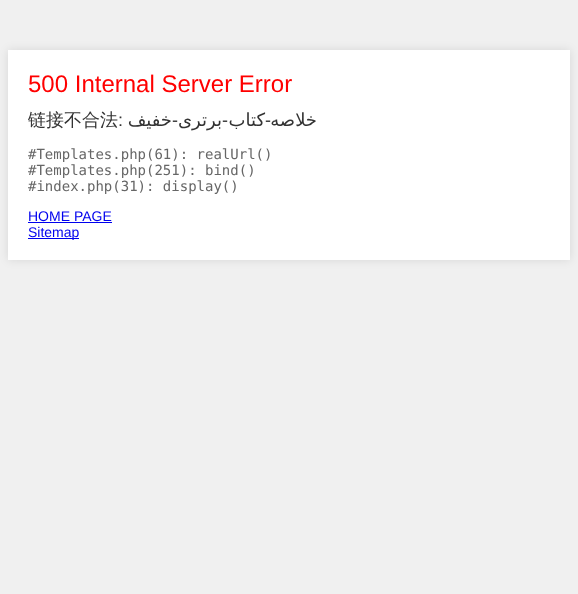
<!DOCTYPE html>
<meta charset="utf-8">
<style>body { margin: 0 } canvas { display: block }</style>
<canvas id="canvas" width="578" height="594"></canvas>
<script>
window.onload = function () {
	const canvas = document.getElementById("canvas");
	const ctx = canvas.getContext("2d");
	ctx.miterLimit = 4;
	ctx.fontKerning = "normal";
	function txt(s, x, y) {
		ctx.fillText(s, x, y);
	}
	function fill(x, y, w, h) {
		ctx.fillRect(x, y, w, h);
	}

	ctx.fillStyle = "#F0F0F0";
	fill(0, 0, 578, 594);
	ctx.fillStyle = "rgba(0, 0, 0, 0.1)";
	ctx.filter = "blur(5px)";
	ctx.beginPath();
	ctx.rect(8, 50, 562, 210);
	ctx.fill();
	ctx.filter = "none";
	ctx.fillStyle = "#FFFFFF";
	fill(8, 50, 562, 210);
	ctx.fillStyle = "#0000EE";
	fill(28, 222, 84, 1);
	fill(28, 238, 51, 1);
	ctx.font = "24px Liberation Sans";
	ctx.fillStyle = "#FF0000";
	txt("500 Internal Server Error", 28, 92);
	ctx.font = "500 18px WenQuanYi Zen Hei";
	ctx.fillStyle = "#333333";
	txt("链接不合法", 28, 126);
	ctx.font = "18px Liberation Sans";
	txt(":", 118, 126);
	ctx.direction = "rtl";
	ctx.font = "18px DejaVu Sans";
	txt("خفیف", 172, 126);
	ctx.font = "18px Liberation Sans";
	txt("-", 178, 126);
	ctx.font = "18px DejaVu Sans";
	txt("برتری", 222, 126);
	ctx.font = "18px Liberation Sans";
	txt("-", 228, 126);
	ctx.font = "18px DejaVu Sans";
	txt("کتاب", 265, 126);
	ctx.font = "18px Liberation Sans";
	txt("-", 271, 126);
	ctx.font = "18px DejaVu Sans";
	txt("خلاصه", 317, 126);
	ctx.direction = "ltr";
	ctx.font = "14px DejaVu Sans Mono";
	ctx.fillStyle = "#666666";
	txt("#Templates.php(61): realUrl()", 28, 159);
	txt("#Templates.php(251): bind()", 28, 175);
	txt("#index.php(31): display()", 28, 191);
	ctx.font = "14px Liberation Sans";
	ctx.fillStyle = "#0000EE";
	txt("HOME PAGE", 28, 221);
	txt("Sitemap", 28, 237);
};
</script>
